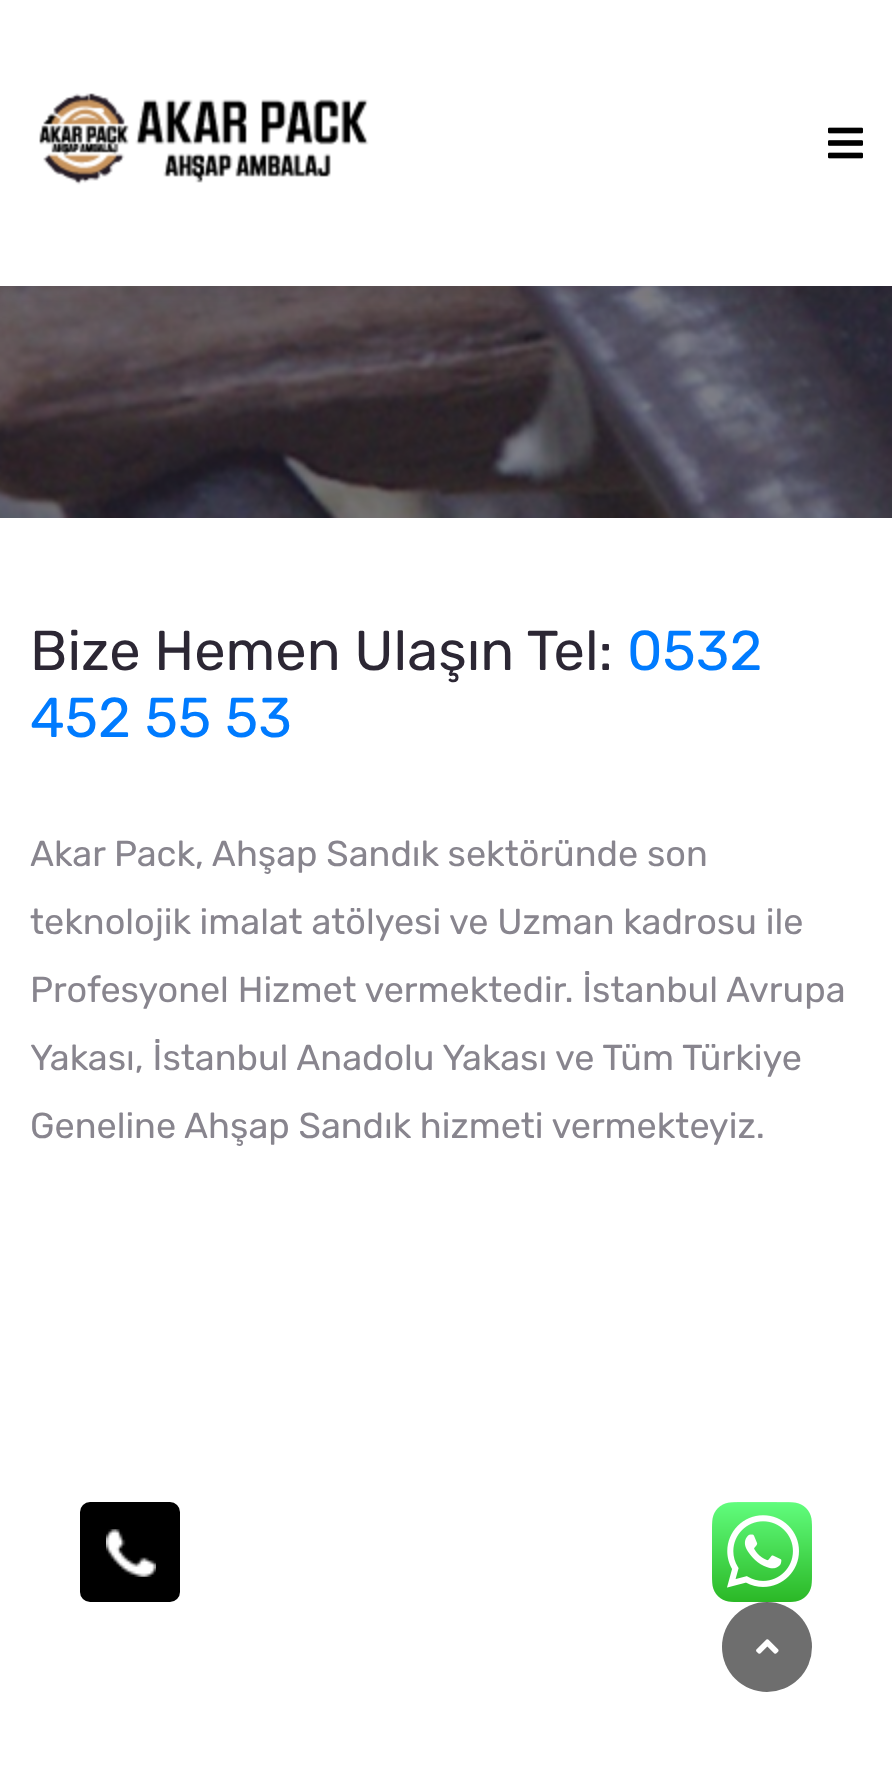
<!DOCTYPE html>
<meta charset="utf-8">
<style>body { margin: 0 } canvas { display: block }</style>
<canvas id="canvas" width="892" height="1771"></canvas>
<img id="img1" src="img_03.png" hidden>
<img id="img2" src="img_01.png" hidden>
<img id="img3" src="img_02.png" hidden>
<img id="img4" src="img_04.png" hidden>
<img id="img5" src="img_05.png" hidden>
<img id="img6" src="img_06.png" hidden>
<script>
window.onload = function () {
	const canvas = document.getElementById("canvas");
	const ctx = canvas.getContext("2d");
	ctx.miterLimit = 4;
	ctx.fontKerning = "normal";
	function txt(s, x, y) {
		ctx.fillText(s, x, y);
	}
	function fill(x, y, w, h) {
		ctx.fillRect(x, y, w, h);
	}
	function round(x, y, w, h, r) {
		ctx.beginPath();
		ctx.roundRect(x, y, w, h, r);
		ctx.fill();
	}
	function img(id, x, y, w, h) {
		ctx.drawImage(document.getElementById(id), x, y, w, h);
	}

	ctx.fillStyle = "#FFFFFF";
	fill(0, 0, 892, 1771);
	img("img1", 0, 286, 892, 232);
	ctx.fillStyle = "rgba(0, 0, 0, 0.06)";
	ctx.filter = "blur(13px)";
	ctx.beginPath();
	ctx.rect(0, 12, 892, 286);
	ctx.fill();
	ctx.filter = "none";
	ctx.fillStyle = "#FFFFFF";
	fill(0, 0, 892, 286);
	img("img2", 39, 93, 330, 92);
	img("img3", 828, 127, 35, 32);
	ctx.fillStyle = "#000000";
	round(80, 1502, 100, 100, 10);
	img("img4", 106, 1529, 50, 48);
	img("img5", 712, 1502, 100, 100);
	ctx.fillStyle = "#6E6E6E";
	ctx.beginPath();
	ctx.arc(767, 1647, 45, 0, Math.PI * 2);
	ctx.fill();
	img("img6", 756, 1639, 23, 15);
	ctx.font = "56px Rubik";
	ctx.fillStyle = "#2C2734";
	txt("Bize Hemen Ulaşın Tel:", 30, 670);
	ctx.fillStyle = "#007BFF";
	txt("0532", 627, 670);
	txt("452 55 53", 30, 737);
	ctx.font = "36px Rubik";
	ctx.fillStyle = "#88858E";
	txt("Akar Pack, Ahşap Sandık sektöründe son", 30, 866);
	txt("teknolojik imalat atölyesi ve Uzman kadrosu ile", 30, 934);
	txt("Profesyonel Hizmet vermektedir. İstanbul Avrupa", 30, 1002);
	txt("Yakası, İstanbul Anadolu Yakası ve Tüm Türkiye", 30, 1070);
	txt("Geneline Ahşap Sandık hizmeti vermekteyiz.", 30, 1138);
};
</script>
